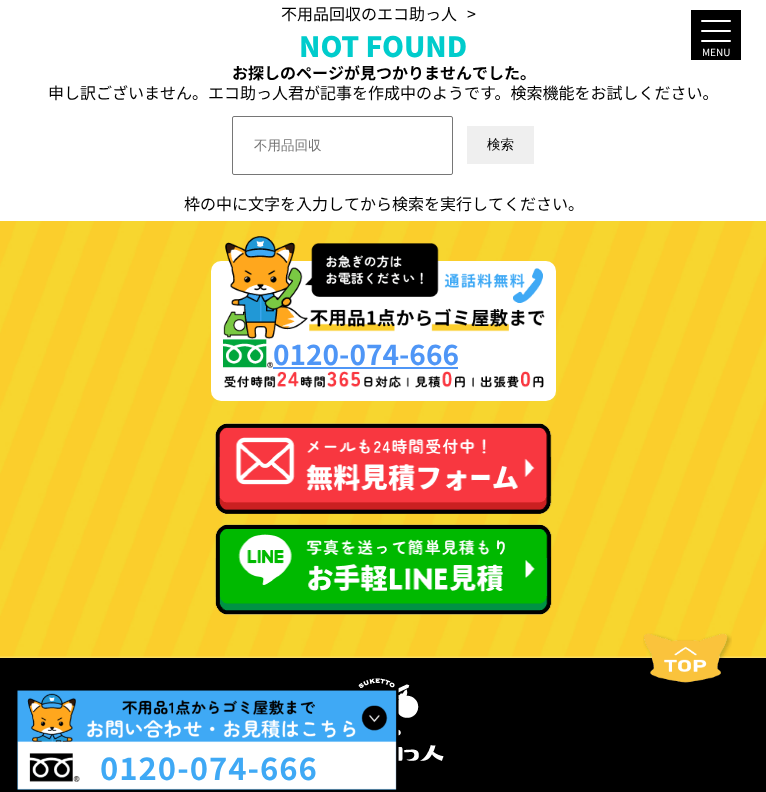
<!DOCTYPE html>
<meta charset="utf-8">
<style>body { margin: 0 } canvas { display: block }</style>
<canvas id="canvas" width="766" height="792"></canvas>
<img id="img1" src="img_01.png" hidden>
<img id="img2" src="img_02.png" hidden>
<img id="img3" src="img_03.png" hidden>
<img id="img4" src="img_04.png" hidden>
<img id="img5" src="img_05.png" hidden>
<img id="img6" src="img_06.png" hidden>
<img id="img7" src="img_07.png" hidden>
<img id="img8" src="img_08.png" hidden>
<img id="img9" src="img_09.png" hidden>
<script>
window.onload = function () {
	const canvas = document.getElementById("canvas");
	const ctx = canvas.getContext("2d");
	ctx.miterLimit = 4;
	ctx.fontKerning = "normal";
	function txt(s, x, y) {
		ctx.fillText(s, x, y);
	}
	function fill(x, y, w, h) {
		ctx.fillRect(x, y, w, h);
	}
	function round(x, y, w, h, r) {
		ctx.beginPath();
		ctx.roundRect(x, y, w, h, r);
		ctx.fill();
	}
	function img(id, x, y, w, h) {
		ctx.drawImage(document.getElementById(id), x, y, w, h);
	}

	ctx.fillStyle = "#FFFFFF";
	fill(0, 0, 766, 792);
	ctx.beginPath();
	ctx.roundRect(232.5, 116.5, 220, 58, 1.5);
	ctx.strokeStyle = "#767676";
	ctx.stroke();
	ctx.fillStyle = "#EFEFEF";
	fill(467, 126, 67, 38);
	ctx.fillStyle = "#000000";
	fill(691, 10, 50, 50);
	ctx.fillStyle = "#FFFFFF";
	round(701, 20, 30, 2, 1);
	round(701, 30, 30, 2, 1);
	round(701, 40, 30, 2, 1);
	img("img1", 0, 221, 766, 437);
	round(211, 261, 345, 140, 10);
	img("img2", 223, 236, 322, 103);
	img("img3", 223, 339, 50, 29);
	ctx.fillStyle = "#4F96F6";
	fill(273, 367, 185, 2);
	img("img4", 224, 371, 320, 17);
	img("img5", 215, 423, 337, 91);
	img("img6", 215, 524, 337, 91);
	ctx.fillStyle = "#000000";
	fill(0, 658, 766, 134);
	img("img7", 643, 633, 89, 50);
	img("img8", 358, 678, 86, 83);
	img("img9", 17, 687, 382, 105);
	ctx.font = "16px Noto Sans JP";
	txt("不用品回収のエコ助っ人", 281, 20);
	txt(">", 467, 20);
	ctx.font = "900 28px Noto Sans JP";
	ctx.fillStyle = "#00CCCC";
	txt("NOT FOUND", 299, 57);
	ctx.font = "bold 16px Noto Sans JP";
	ctx.fillStyle = "#000000";
	txt("お探しのページが見つかりませんでした。", 232, 79);
	ctx.font = "16px Noto Sans JP";
	txt("申し訳ございません。エコ助っ人君が記事を作成中のようです。検索機能をお試しください。", 48, 99);
	ctx.font = "500 13.5px WenQuanYi Zen Hei";
	ctx.fillStyle = "#757575";
	txt("不用品回収", 254, 150);
	ctx.fillStyle = "#000000";
	txt("検索", 487, 149);
	ctx.font = "16px Noto Sans JP";
	txt("枠の中に文字を入力してから検索を実行してください。", 184, 210);
	ctx.font = "10px Noto Sans JP";
	ctx.fillStyle = "#FFFFFF";
	txt("MENU", 702, 56);
	ctx.font = "bold 28px Noto Sans JP";
	ctx.fillStyle = "#4F96F6";
	txt("0120-074-666", 273, 365);
	ctx.letterSpacing = "1px";
	ctx.font = "bold 31px Noto Sans JP";
	ctx.fillStyle = "#3FA9F5";
	txt("0120-074-666", 100, 780);
};
</script>
